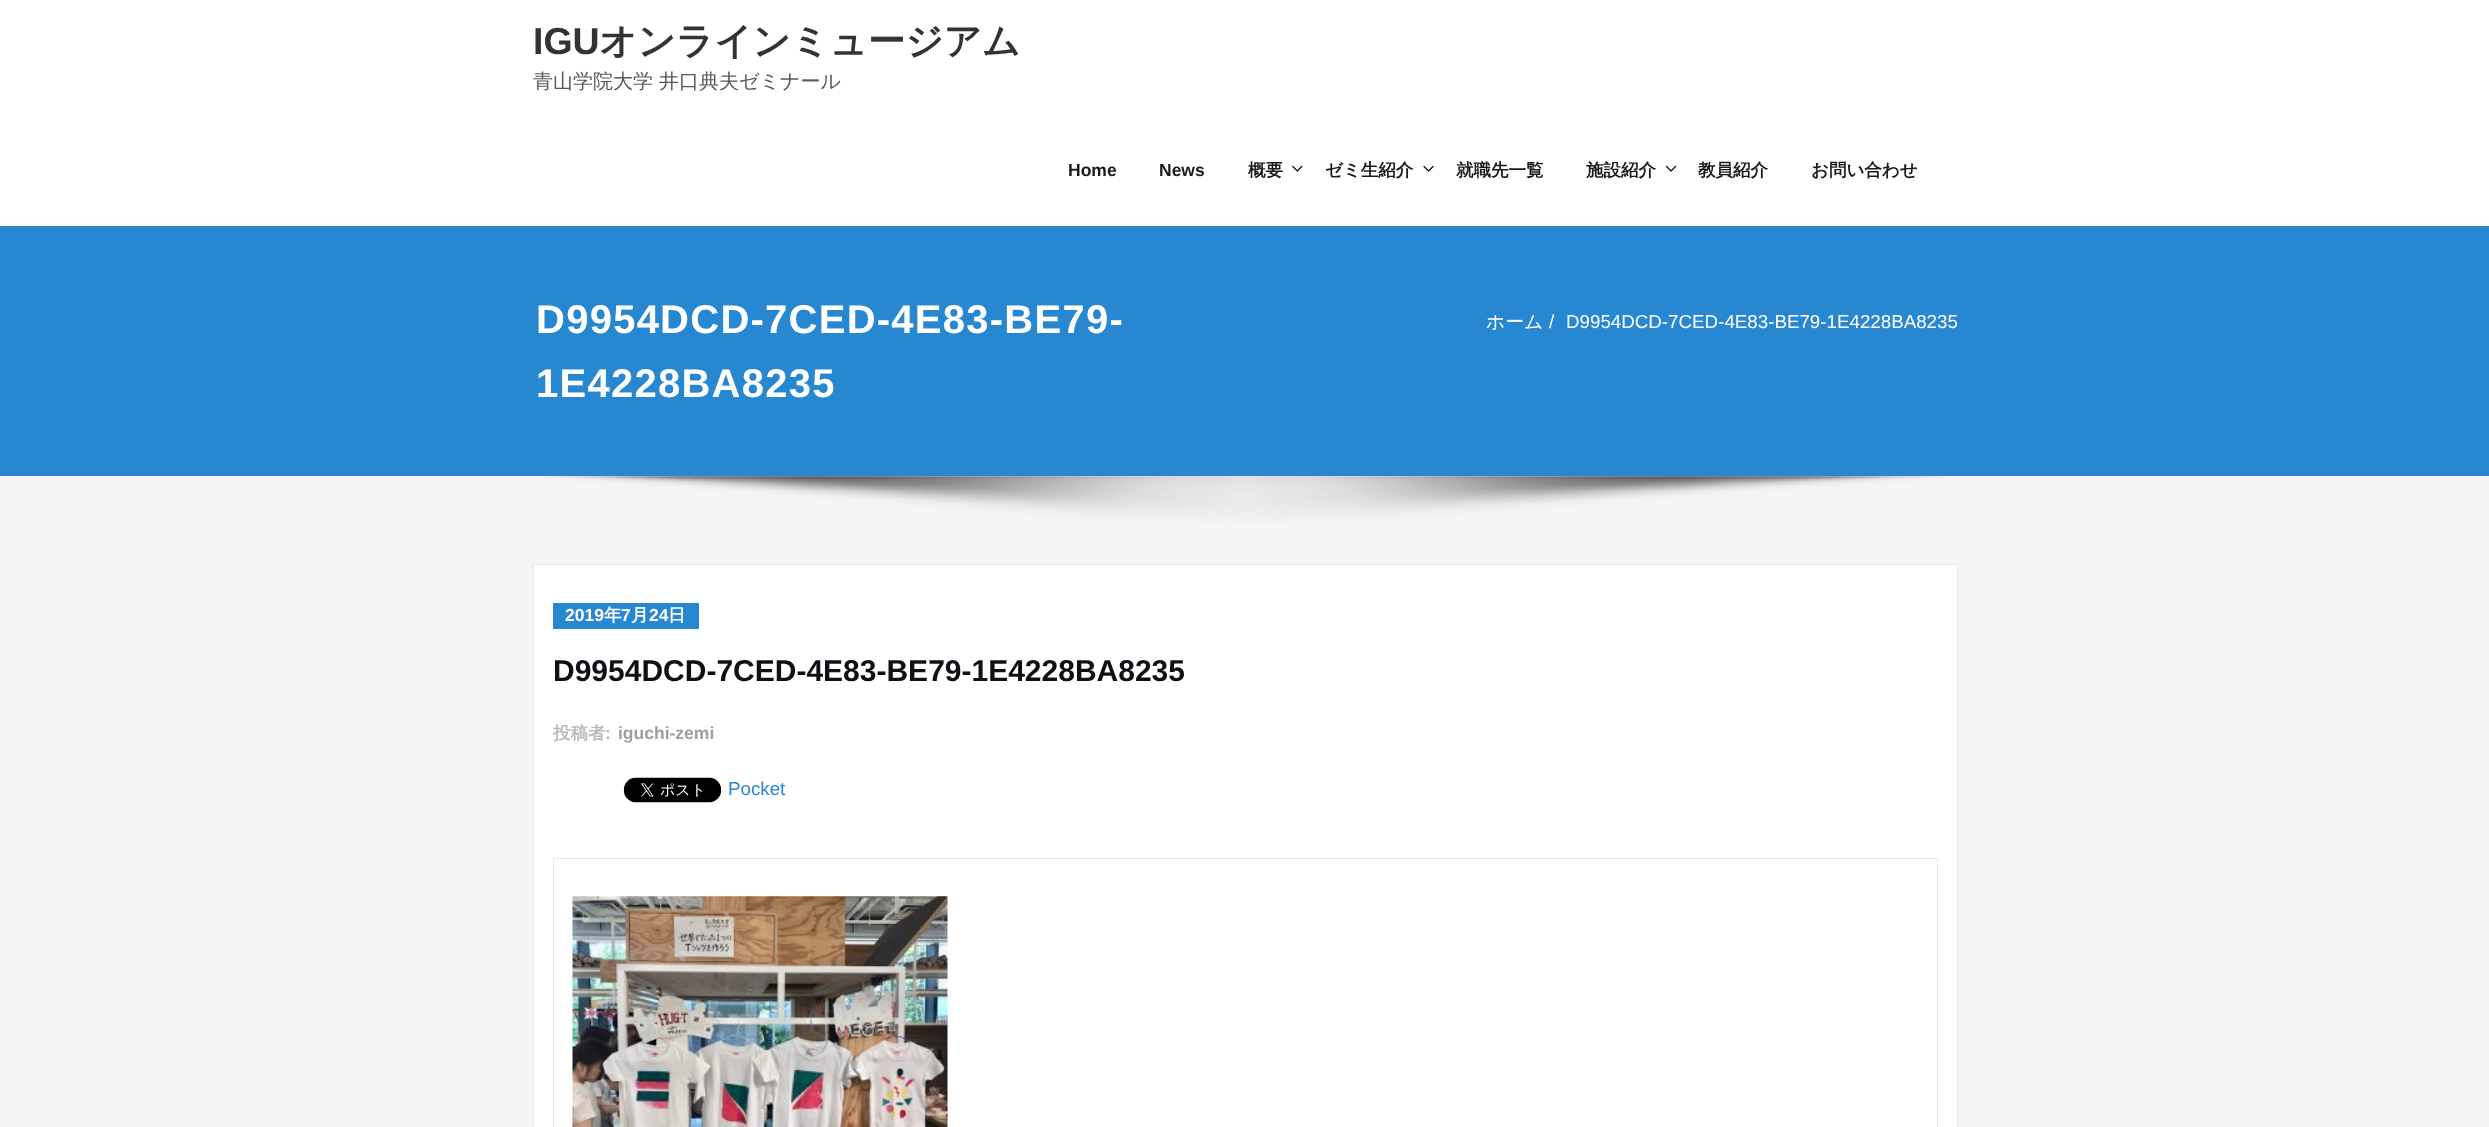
<!DOCTYPE html>
<meta charset="utf-8">
<style>body { margin: 0 } canvas { display: block }</style>
<canvas id="canvas" width="2489" height="1127"></canvas>
<img id="img1" src="img_01.png" hidden>
<img id="img2" src="img_02.png" hidden>
<img id="img3" src="img_03.png" hidden>
<img id="img4" src="img_04.png" hidden>
<img id="img5" src="img_05.png" hidden>
<img id="img6" src="img_06.png" hidden>
<script>
window.onload = function () {
	const canvas = document.getElementById("canvas");
	const ctx = canvas.getContext("2d");
	ctx.miterLimit = 4;
	ctx.fontKerning = "normal";
	function txt(s, x, y) {
		ctx.fillText(s, x, y);
	}
	function fill(x, y, w, h) {
		ctx.fillRect(x, y, w, h);
	}
	function img(id, x, y, w, h) {
		ctx.drawImage(document.getElementById(id), x, y, w, h);
	}

	ctx.fillStyle = "#F5F5F5";
	fill(0, 0, 2489, 1127);
	ctx.fillStyle = "#FFFFFF";
	fill(0, 0, 2489, 226);
	img("img1", 1292, 165, 11, 7);
	img("img2", 1423, 165, 11, 7);
	img("img3", 1665, 165, 12, 7);
	ctx.fillStyle = "#2787D1";
	fill(0, 226, 2489, 250);
	img("img4", 546, 476, 1397, 45);
	ctx.fillStyle = "#FFFFFF";
	ctx.beginPath();
	ctx.rect(533.5, 564.5, 1424, 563);
	ctx.fill();
	ctx.strokeStyle = "#E9E9E9";
	ctx.stroke();
	ctx.fillStyle = "#2787D1";
	fill(553, 603, 146, 26);
	img("img5", 623, 777, 99, 26);
	ctx.strokeRect(553.5, 858.5, 1384, 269);
	img("img6", 572, 896, 376, 231);
	ctx.font = "bold 37.5px Liberation Sans";
	ctx.fillStyle = "#333333";
	txt("IGU", 533, 54);
	ctx.font = "bold 37.5px WenQuanYi Zen Hei";
	txt("オンラインミュージアム", 599, 54);
	ctx.font = "500 20px WenQuanYi Zen Hei";
	ctx.fillStyle = "#5F5555";
	txt("青山学院大学 井口典夫ゼミナール", 533, 88);
	ctx.font = "bold 17.5px Liberation Sans";
	ctx.fillStyle = "#1B1B1B";
	txt("Home", 1068, 176);
	txt("News", 1159, 176);
	ctx.font = "bold 17.5px WenQuanYi Zen Hei";
	txt("概要", 1248, 176);
	txt("ゼミ生紹介", 1325, 176);
	txt("就職先一覧", 1456, 176);
	txt("施設紹介", 1586, 176);
	txt("教員紹介", 1698, 176);
	txt("お問い合わせ", 1811, 176);
	ctx.letterSpacing = "1.25px";
	ctx.font = "bold 40px Liberation Sans";
	ctx.fillStyle = "#FFFFFF";
	txt("D9954DCD-7CED-4E83-BE79-", 536, 333);
	txt("1E4228BA8235", 536, 397);
	ctx.letterSpacing = "0px";
	ctx.font = "500 18.75px WenQuanYi Zen Hei";
	txt("ホーム", 1486, 328);
	ctx.font = "18.75px Liberation Sans";
	txt("/", 1549, 328);
	txt("D9954DCD-7CED-4E83-BE79-1E4228BA8235", 1566, 328);
	ctx.font = "bold 17.5px Liberation Sans";
	txt("2019", 565, 621);
	ctx.font = "bold 17.5px WenQuanYi Zen Hei";
	txt("年", 604, 621);
	ctx.font = "bold 17.5px Liberation Sans";
	txt("7", 621, 621);
	ctx.font = "bold 17.5px WenQuanYi Zen Hei";
	txt("月", 631, 621);
	ctx.font = "bold 17.5px Liberation Sans";
	txt("24", 649, 621);
	ctx.font = "bold 17.5px WenQuanYi Zen Hei";
	txt("日", 668, 621);
	ctx.font = "bold 30px Liberation Sans";
	ctx.fillStyle = "#0F0F16";
	txt("D9954DCD-7CED-4E83-BE79-1E4228BA8235", 553, 681);
	ctx.save();
	ctx.beginPath();
	ctx.rect(553, 720, 1385, 26);
	ctx.clip();
	ctx.font = "bold 17.5px WenQuanYi Zen Hei";
	ctx.fillStyle = "#B9B9B9";
	txt("投稿者", 553, 739);
	ctx.restore();
	ctx.font = "bold 17.5px Liberation Sans";
	ctx.fillStyle = "#B9B9B9";
	txt(":", 605, 739);
	ctx.fillStyle = "#9F9F9F";
	txt("iguchi-zemi", 618, 739);
	ctx.font = "18.75px Liberation Sans";
	ctx.fillStyle = "#2787D1";
	txt("Pocket", 728, 795);
};
</script>
